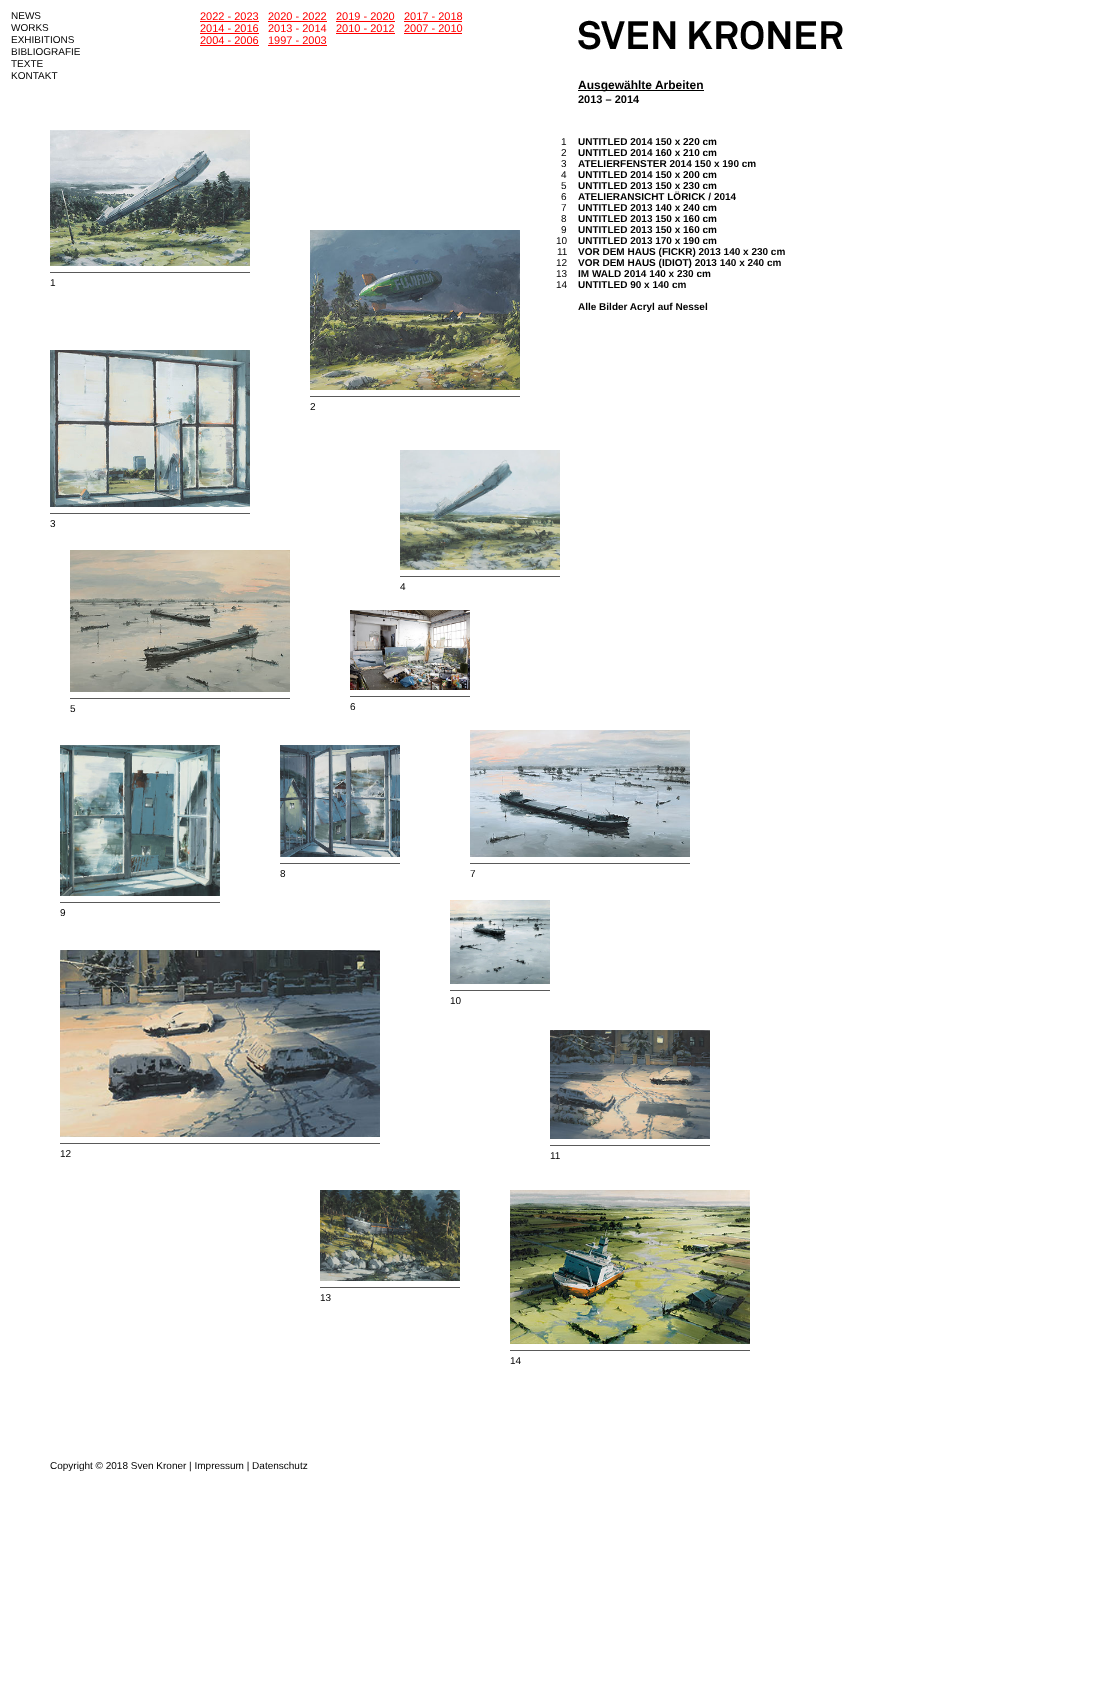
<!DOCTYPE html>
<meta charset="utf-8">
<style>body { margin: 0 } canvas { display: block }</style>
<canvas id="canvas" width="1105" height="1703"></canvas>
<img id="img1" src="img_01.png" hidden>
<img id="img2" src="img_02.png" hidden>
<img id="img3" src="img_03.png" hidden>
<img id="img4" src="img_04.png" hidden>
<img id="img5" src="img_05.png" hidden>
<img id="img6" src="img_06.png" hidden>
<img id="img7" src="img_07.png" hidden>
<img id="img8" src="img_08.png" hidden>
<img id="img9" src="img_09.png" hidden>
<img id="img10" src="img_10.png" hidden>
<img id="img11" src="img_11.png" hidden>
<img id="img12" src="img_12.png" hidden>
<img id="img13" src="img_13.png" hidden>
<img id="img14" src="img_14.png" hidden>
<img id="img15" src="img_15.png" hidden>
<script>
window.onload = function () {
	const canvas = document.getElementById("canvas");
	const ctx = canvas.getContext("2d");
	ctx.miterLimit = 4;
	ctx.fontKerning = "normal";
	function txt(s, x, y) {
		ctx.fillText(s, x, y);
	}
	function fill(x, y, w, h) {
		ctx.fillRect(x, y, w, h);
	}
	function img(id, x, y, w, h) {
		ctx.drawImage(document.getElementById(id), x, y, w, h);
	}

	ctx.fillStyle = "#FFFFFF";
	fill(0, 0, 1105, 1703);
	ctx.fillStyle = "#FF0000";
	fill(200, 21, 59, 1);
	fill(268, 21, 59, 1);
	fill(336, 21, 59, 1);
	fill(404, 21, 58, 1);
	fill(200, 33, 59, 1);
	fill(336, 33, 59, 1);
	fill(404, 33, 58, 1);
	fill(200, 45, 59, 1);
	fill(268, 45, 59, 1);
	img("img1", 578, 20, 265, 30);
	ctx.fillStyle = "#000000";
	fill(578, 90, 126, 1);
	img("img2", 50, 130, 200, 136);
	img("img3", 310, 230, 210, 160);
	img("img4", 50, 350, 200, 157);
	img("img5", 400, 450, 160, 120);
	img("img6", 70, 550, 220, 142);
	img("img7", 350, 610, 120, 80);
	img("img8", 280, 745, 120, 112);
	img("img9", 470, 730, 220, 127);
	img("img10", 60, 745, 160, 151);
	img("img11", 450, 900, 100, 84);
	img("img12", 60, 950, 320, 187);
	img("img13", 550, 1030, 160, 109);
	img("img14", 320, 1190, 140, 91);
	img("img15", 510, 1190, 240, 154);
	ctx.font = "10px Liberation Sans";
	txt("NEWS", 11, 19);
	txt("WORKS", 11, 31);
	txt("EXHIBITIONS", 11, 43);
	txt("BIBLIOGRAFIE", 11, 55);
	txt("TEXTE", 11, 67);
	txt("KONTAKT", 11, 79);
	ctx.font = "11px Liberation Sans";
	ctx.fillStyle = "#FF0000";
	txt("2022 - 2023", 200, 20);
	txt("2020 - 2022", 268, 20);
	txt("2019 - 2020", 336, 20);
	txt("2017 - 2018", 404, 20);
	txt("2014 - 2016", 200, 32);
	txt("2013 - 2014", 268, 32);
	txt("2010 - 2012", 336, 32);
	txt("2007 - 2010", 404, 32);
	txt("2004 - 2006", 200, 44);
	txt("1997 - 2003", 268, 44);
	ctx.font = "bold 12px Liberation Sans";
	ctx.fillStyle = "#000000";
	txt("Ausgewählte Arbeiten", 578, 89);
	ctx.font = "bold 11px Liberation Sans";
	txt("2013 – 2014", 578, 103);
	ctx.font = "10px Liberation Sans";
	txt("————————————————————", 50, 275);
	txt("1", 50, 286);
	txt("1", 561, 145);
	txt("2", 561, 156);
	txt("3", 561, 167);
	txt("4", 561, 178);
	txt("5", 561, 189);
	txt("6", 561, 200);
	txt("7", 561, 211);
	txt("8", 561, 222);
	txt("9", 561, 233);
	txt("10", 556, 244);
	txt("11", 557, 255);
	txt("12", 556, 266);
	txt("13", 556, 277);
	txt("14", 556, 288);
	ctx.font = "bold 10px Liberation Sans";
	txt("UNTITLED 2014 150 x 220 cm", 578, 145);
	txt("UNTITLED 2014 160 x 210 cm", 578, 156);
	txt("ATELIERFENSTER 2014 150 x 190 cm", 578, 167);
	txt("UNTITLED 2014 150 x 200 cm", 578, 178);
	txt("UNTITLED 2013 150 x 230 cm", 578, 189);
	txt("ATELIERANSICHT LÖRICK / 2014", 578, 200);
	txt("UNTITLED 2013 140 x 240 cm", 578, 211);
	txt("UNTITLED 2013 150 x 160 cm", 578, 222);
	txt("UNTITLED 2013 150 x 160 cm", 578, 233);
	txt("UNTITLED 2013 170 x 190 cm", 578, 244);
	txt("VOR DEM HAUS (FICKR) 2013 140 x 230 cm", 578, 255);
	txt("VOR DEM HAUS (IDIOT) 2013 140 x 240 cm", 578, 266);
	txt("IM WALD 2014 140 x 230 cm", 578, 277);
	txt("UNTITLED 90 x 140 cm", 578, 288);
	txt("Alle Bilder Acryl auf Nessel", 578, 310);
	ctx.font = "10px Liberation Sans";
	txt("—————————————————————", 310, 399);
	txt("2", 310, 410);
	txt("————————————————————", 50, 516);
	txt("3", 50, 527);
	txt("————————————————", 400, 579);
	txt("4", 400, 590);
	txt("——————————————————————", 70, 701);
	txt("5", 70, 712);
	txt("————————————", 350, 699);
	txt("6", 350, 710);
	txt("————————————", 280, 866);
	txt("8", 280, 877);
	txt("——————————————————————", 470, 866);
	txt("7", 470, 877);
	txt("————————————————", 60, 905);
	txt("9", 60, 916);
	txt("——————————", 450, 993);
	txt("10", 450, 1004);
	txt("————————————————————————————————", 60, 1146);
	txt("12", 60, 1157);
	txt("————————————————", 550, 1148);
	txt("11", 550, 1159);
	txt("——————————————", 320, 1290);
	txt("13", 320, 1301);
	txt("————————————————————————", 510, 1353);
	txt("14", 510, 1364);
	txt("Copyright © 2018 Sven Kroner | Impressum | Datenschutz", 50, 1469);
};
</script>
